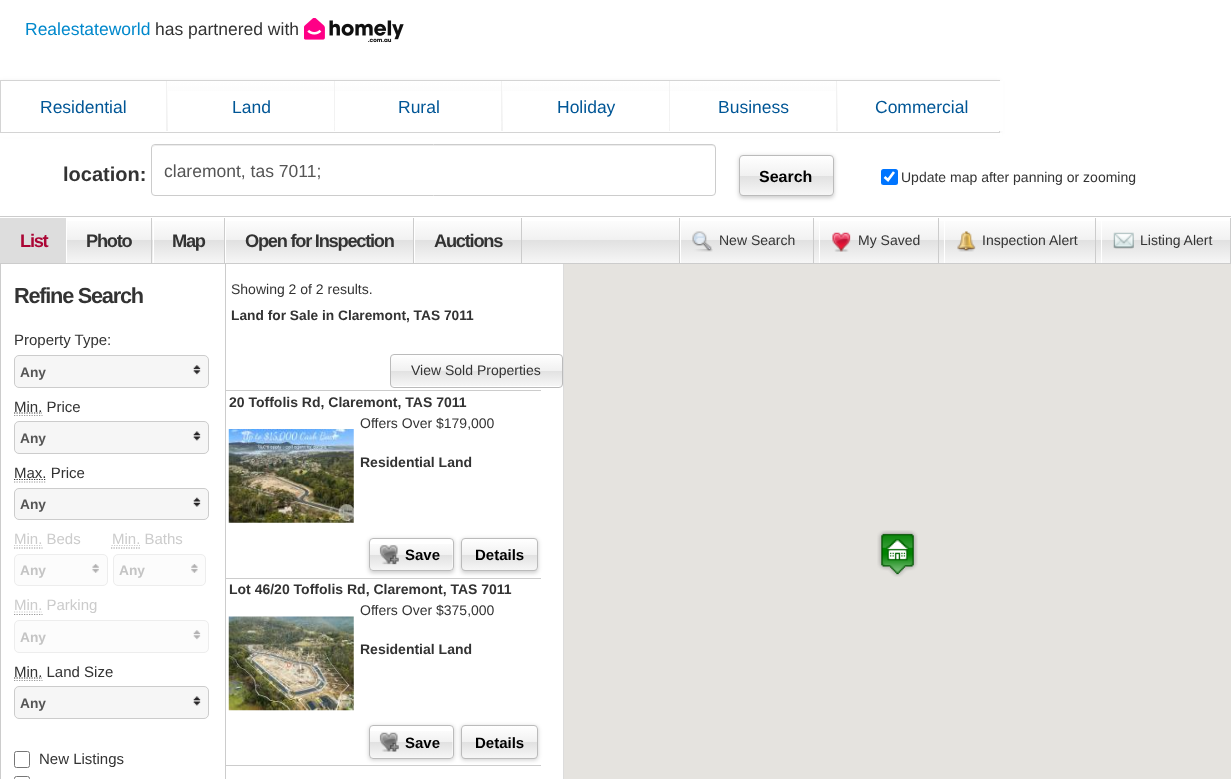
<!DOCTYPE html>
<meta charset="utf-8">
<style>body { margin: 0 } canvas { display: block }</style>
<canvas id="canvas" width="1231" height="779"></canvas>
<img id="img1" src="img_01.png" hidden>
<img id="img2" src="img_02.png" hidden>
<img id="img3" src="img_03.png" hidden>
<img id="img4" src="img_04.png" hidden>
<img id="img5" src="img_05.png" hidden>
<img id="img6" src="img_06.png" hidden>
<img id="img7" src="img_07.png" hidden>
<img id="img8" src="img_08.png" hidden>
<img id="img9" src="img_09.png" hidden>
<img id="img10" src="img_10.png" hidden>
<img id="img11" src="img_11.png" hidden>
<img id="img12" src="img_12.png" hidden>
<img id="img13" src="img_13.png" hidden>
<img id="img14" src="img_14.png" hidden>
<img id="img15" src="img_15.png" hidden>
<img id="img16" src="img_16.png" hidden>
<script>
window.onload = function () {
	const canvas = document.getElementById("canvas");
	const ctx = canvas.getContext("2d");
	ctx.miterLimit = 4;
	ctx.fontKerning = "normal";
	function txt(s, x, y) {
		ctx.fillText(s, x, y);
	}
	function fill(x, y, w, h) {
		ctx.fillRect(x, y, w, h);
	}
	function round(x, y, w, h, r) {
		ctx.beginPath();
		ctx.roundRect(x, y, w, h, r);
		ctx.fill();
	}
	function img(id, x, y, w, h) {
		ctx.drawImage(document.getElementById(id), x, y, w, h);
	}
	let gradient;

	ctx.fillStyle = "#FFFFFF";
	fill(0, 0, 1231, 779);
	img("img1", 304, 18, 100, 25);
	ctx.fillStyle = "rgba(0, 0, 0, 0.07)";
	ctx.filter = "blur(2.5px)";
	ctx.beginPath();
	ctx.rect(0, 81, 1000, 53);
	ctx.fill();
	ctx.filter = "none";
	ctx.fillStyle = "#FFFFFF";
	fill(1, 131, 998, 1);
	gradient = ctx.createLinearGradient(500, 81, 500, 131);
	gradient.addColorStop(0, "#FFFFFF");
	gradient.addColorStop(1, "#F2F2F2");
	ctx.fillStyle = gradient;
	fill(167, 81, 671, 50);
	ctx.strokeStyle = "#D4D4D4";
	ctx.strokeRect(0.5, 80.5, 999, 52);
	ctx.fillStyle = "#FFFFFF";
	fill(1, 81, 165, 50);
	fill(168, 91, 166, 40);
	ctx.fillStyle = "#F2F2F2";
	fill(166, 81, 1, 50);
	ctx.fillStyle = "#FFFFFF";
	fill(335, 91, 166, 40);
	ctx.fillStyle = "#F2F2F2";
	fill(334, 81, 1, 40);
	ctx.fillStyle = "#FFFFFF";
	fill(503, 91, 166, 40);
	ctx.fillStyle = "#F2F2F2";
	fill(501, 81, 1, 40);
	ctx.fillStyle = "#FFFFFF";
	fill(670, 91, 166, 40);
	ctx.fillStyle = "#F2F2F2";
	fill(669, 81, 1, 40);
	ctx.fillStyle = "#FFFFFF";
	fill(838, 81, 165, 50);
	ctx.fillStyle = "#F2F2F2";
	fill(836, 81, 1, 40);
	ctx.fillStyle = "#FFFFFF";
	fill(0, 133, 1002, 4);
	ctx.fillStyle = "#CCCCCC";
	fill(0, 216, 1231, 1);
	ctx.fillStyle = "#ECECEC";
	ctx.beginPath();
	ctx.moveTo(155, 146);
	ctx.lineTo(712, 146);
	ctx.bezierCurveTo(714, 146, 715, 147, 715, 149);
	ctx.lineTo(715, 148);
	ctx.bezierCurveTo(715, 146, 714, 145, 712, 145);
	ctx.lineTo(156, 145);
	ctx.bezierCurveTo(154, 145, 153, 146, 153, 147);
	ctx.closePath();
	ctx.fill();
	ctx.beginPath();
	ctx.roundRect(151.5, 144.5, 564, 51, 3.5);
	ctx.strokeStyle = "#CCCCCC";
	ctx.stroke();
	ctx.fillStyle = "rgba(0, 0, 0, 0.2)";
	ctx.filter = "blur(2px)";
	ctx.beginPath();
	ctx.roundRect(739, 156, 95, 42, 4);
	ctx.fill();
	ctx.filter = "none";
	ctx.save();
	ctx.beginPath();
	ctx.roundRect(739, 155, 95, 41, 4);
	ctx.clip();
	gradient = ctx.createLinearGradient(786, 156, 786, 195);
	gradient.addColorStop(0, "#FFFFFF");
	gradient.addColorStop(0.5, "#F1F1F1");
	gradient.addColorStop(0.51, "#E1E1E1");
	gradient.addColorStop(1, "#F6F6F6");
	ctx.fillStyle = gradient;
	fill(739, 156, 95, 39);
	ctx.restore();
	ctx.beginPath();
	ctx.roundRect(739.5, 155.5, 94, 40, 3.5);
	ctx.strokeStyle = "#BBBBBB";
	ctx.stroke();
	ctx.fillStyle = "#0075FF";
	round(881, 169, 17, 16, 2.5);
	ctx.beginPath();
	ctx.moveTo(884.5, 177);
	ctx.lineTo(888, 180);
	ctx.lineTo(894, 172);
	ctx.strokeStyle = "#FFFFFF";
	ctx.lineWidth = 2.6;
	ctx.stroke();
	gradient = ctx.createLinearGradient(615, 217, 615, 263);
	gradient.addColorStop(0, "#FFFFFF");
	gradient.addColorStop(0.5, "#F1F1F1");
	gradient.addColorStop(0.51, "#E1E1E1");
	gradient.addColorStop(1, "#F6F6F6");
	ctx.fillStyle = gradient;
	fill(67, 221, 1163, 42);
	ctx.fillStyle = "#CCCCCC";
	fill(1230, 218, 1, 46);
	fill(0, 263, 1231, 1);
	ctx.fillStyle = "#DDDDDD";
	fill(0, 218, 66, 45);
	ctx.fillStyle = "#CCCCCC";
	fill(151, 218, 1, 45);
	fill(224, 218, 1, 45);
	ctx.fillStyle = "#FFFFFF";
	fill(153, 218, 1, 45);
	ctx.fillStyle = "#CCCCCC";
	fill(413, 218, 1, 45);
	ctx.fillStyle = "#FFFFFF";
	fill(225, 218, 1, 45);
	ctx.fillStyle = "#CCCCCC";
	fill(521, 218, 1, 45);
	ctx.fillStyle = "#FFFFFF";
	fill(414, 218, 1, 45);
	ctx.fillStyle = "#CCCCCC";
	fill(679, 218, 1, 45);
	img("img2", 692, 231, 21, 21);
	fill(813, 218, 1, 45);
	ctx.fillStyle = "#FFFFFF";
	fill(680, 218, 1, 45);
	img("img3", 832, 232, 19, 20);
	ctx.fillStyle = "#CCCCCC";
	fill(938, 218, 1, 45);
	ctx.fillStyle = "#FFFFFF";
	fill(819, 218, 1, 45);
	img("img4", 957, 231, 19, 21);
	ctx.fillStyle = "#CCCCCC";
	fill(1095, 218, 1, 45);
	ctx.fillStyle = "#FFFFFF";
	fill(944, 218, 1, 45);
	img("img5", 1113, 232, 21, 17);
	fill(1101, 218, 1, 45);
	ctx.fillStyle = "#CCCCCC";
	fill(225, 264, 1, 515);
	fill(0, 264, 1, 515);
	ctx.fillStyle = "#F6F6F6";
	ctx.beginPath();
	ctx.roundRect(14.5, 355.5, 194, 32, 4.5);
	ctx.fill();
	ctx.strokeStyle = "#CCCCCC";
	ctx.lineWidth = 1;
	ctx.stroke();
	img("img6", 193, 365, 8, 10);
	ctx.beginPath();
	ctx.moveTo(14, 415.5);
	ctx.lineTo(42.5, 415.5);
	ctx.strokeStyle = "#999999";
	ctx.lineWidth = 1.2;
	ctx.setLineDash([1.25, 1.25]);
	ctx.stroke();
	ctx.beginPath();
	ctx.moveTo(14, 413);
	ctx.lineTo(42, 413);
	ctx.strokeStyle = "#333333";
	ctx.stroke();
	ctx.beginPath();
	ctx.roundRect(14.5, 421.5, 194, 32, 4.5);
	ctx.fill();
	ctx.strokeStyle = "#CCCCCC";
	ctx.lineWidth = 1;
	ctx.setLineDash([]);
	ctx.stroke();
	img("img7", 193, 431, 8, 10);
	ctx.beginPath();
	ctx.moveTo(14, 482);
	ctx.lineTo(46, 482);
	ctx.strokeStyle = "#999999";
	ctx.lineWidth = 1.2;
	ctx.setLineDash([1.25, 1.25]);
	ctx.stroke();
	ctx.beginPath();
	ctx.moveTo(14, 479.5);
	ctx.lineTo(46.5, 479.5);
	ctx.strokeStyle = "#333333";
	ctx.stroke();
	ctx.beginPath();
	ctx.roundRect(14.5, 488.5, 194, 31, 4.5);
	ctx.fill();
	ctx.strokeStyle = "#CCCCCC";
	ctx.lineWidth = 1;
	ctx.setLineDash([]);
	ctx.stroke();
	img("img8", 193, 497, 8, 10);
	ctx.beginPath();
	ctx.moveTo(14, 548);
	ctx.lineTo(42.5, 548);
	ctx.strokeStyle = "#999999";
	ctx.lineWidth = 1.2;
	ctx.setLineDash([1.25, 1.25]);
	ctx.stroke();
	ctx.beginPath();
	ctx.moveTo(14, 545.5);
	ctx.lineTo(42, 545.5);
	ctx.strokeStyle = "#CCCCCC";
	ctx.stroke();
	ctx.beginPath();
	ctx.moveTo(111, 548);
	ctx.lineTo(140, 548);
	ctx.strokeStyle = "#999999";
	ctx.stroke();
	ctx.beginPath();
	ctx.moveTo(111.5, 545.5);
	ctx.lineTo(140, 545.5);
	ctx.strokeStyle = "#CCCCCC";
	ctx.stroke();
	ctx.fillStyle = "#FCFCFC";
	ctx.beginPath();
	ctx.roundRect(14.5, 554.5, 93, 31, 4.5);
	ctx.fill();
	ctx.strokeStyle = "#EDEDED";
	ctx.lineWidth = 1;
	ctx.setLineDash([]);
	ctx.stroke();
	img("img9", 92, 564, 7, 9);
	ctx.beginPath();
	ctx.roundRect(113.5, 554.5, 92, 31, 4.5);
	ctx.fill();
	ctx.stroke();
	img("img10", 191, 564, 7, 9);
	ctx.beginPath();
	ctx.moveTo(14, 614.5);
	ctx.lineTo(42.5, 614.5);
	ctx.strokeStyle = "#999999";
	ctx.lineWidth = 1.2;
	ctx.setLineDash([1.25, 1.25]);
	ctx.stroke();
	ctx.beginPath();
	ctx.moveTo(14, 612);
	ctx.lineTo(42, 612);
	ctx.strokeStyle = "#CCCCCC";
	ctx.stroke();
	ctx.beginPath();
	ctx.roundRect(14.5, 620.5, 194, 32, 4.5);
	ctx.fill();
	ctx.strokeStyle = "#EDEDED";
	ctx.lineWidth = 1;
	ctx.setLineDash([]);
	ctx.stroke();
	img("img11", 193, 630, 8, 10);
	ctx.beginPath();
	ctx.moveTo(14, 680.5);
	ctx.lineTo(42.5, 680.5);
	ctx.strokeStyle = "#999999";
	ctx.lineWidth = 1.2;
	ctx.setLineDash([1.25, 1.25]);
	ctx.stroke();
	ctx.beginPath();
	ctx.moveTo(14, 678);
	ctx.lineTo(42, 678);
	ctx.strokeStyle = "#333333";
	ctx.stroke();
	ctx.fillStyle = "#F6F6F6";
	ctx.beginPath();
	ctx.roundRect(14.5, 686.5, 194, 32, 4.5);
	ctx.fill();
	ctx.strokeStyle = "#CCCCCC";
	ctx.lineWidth = 1;
	ctx.setLineDash([]);
	ctx.stroke();
	img("img7", 193, 696, 8, 10);
	ctx.beginPath();
	ctx.roundRect(14.5, 751.5, 15, 16, 2);
	ctx.strokeStyle = "#767676";
	ctx.stroke();
	ctx.beginPath();
	ctx.roundRect(14.5, 776.5, 15, 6, 2);
	ctx.stroke();
	ctx.save();
	ctx.beginPath();
	ctx.roundRect(390, 354, 173, 34, 4);
	ctx.clip();
	gradient = ctx.createLinearGradient(476, 355, 476, 386);
	gradient.addColorStop(0, "#FFFFFF");
	gradient.addColorStop(0.5, "#F1F1F1");
	gradient.addColorStop(0.51, "#E1E1E1");
	gradient.addColorStop(1, "#F6F6F6");
	ctx.fillStyle = gradient;
	fill(390, 355, 173, 31);
	ctx.restore();
	ctx.beginPath();
	ctx.roundRect(390.5, 354.5, 172, 33, 3.5);
	ctx.strokeStyle = "#BBBBBB";
	ctx.stroke();
	ctx.fillStyle = "#CCCCCC";
	fill(226, 390, 315, 1);
	fill(226, 578, 315, 1);
	img("img12", 228, 429, 126, 94);
	ctx.save();
	ctx.beginPath();
	ctx.moveTo(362, 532);
	ctx.lineTo(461, 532);
	ctx.lineTo(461, 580);
	ctx.lineTo(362, 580);
	ctx.closePath();
	ctx.moveTo(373, 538);
	ctx.lineTo(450, 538);
	ctx.bezierCurveTo(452, 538, 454, 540, 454, 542);
	ctx.lineTo(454, 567);
	ctx.bezierCurveTo(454, 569, 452, 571, 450, 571);
	ctx.lineTo(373, 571);
	ctx.bezierCurveTo(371, 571, 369, 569, 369, 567);
	ctx.lineTo(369, 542);
	ctx.bezierCurveTo(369, 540, 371, 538, 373, 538);
	ctx.closePath();
	ctx.clip("evenodd");
	ctx.fillStyle = "rgba(0, 0, 0, 0.2)";
	ctx.filter = "blur(2px)";
	ctx.beginPath();
	ctx.roundRect(369, 539, 85, 34, 4);
	ctx.fill();
	ctx.filter = "none";
	ctx.restore();
	img("img13", 370, 544, 83, 26);
	ctx.beginPath();
	ctx.roundRect(369.5, 538.5, 84, 32, 3.5);
	ctx.stroke();
	ctx.fillStyle = "rgba(0, 0, 0, 0.2)";
	ctx.filter = "blur(2px)";
	ctx.beginPath();
	ctx.roundRect(461, 539, 77, 34, 4);
	ctx.fill();
	ctx.filter = "none";
	ctx.save();
	ctx.beginPath();
	ctx.roundRect(461, 538, 77, 33, 4);
	ctx.clip();
	gradient = ctx.createLinearGradient(499, 539, 499, 570);
	gradient.addColorStop(0, "#FFFFFF");
	gradient.addColorStop(0.5, "#F1F1F1");
	gradient.addColorStop(0.51, "#E1E1E1");
	gradient.addColorStop(1, "#F6F6F6");
	ctx.fillStyle = gradient;
	fill(461, 539, 77, 31);
	ctx.restore();
	ctx.beginPath();
	ctx.roundRect(461.5, 538.5, 76, 32, 3.5);
	ctx.stroke();
	ctx.fillStyle = "#CCCCCC";
	fill(226, 765, 315, 1);
	img("img14", 228, 616, 126, 95);
	ctx.save();
	ctx.beginPath();
	ctx.moveTo(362, 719);
	ctx.lineTo(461, 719);
	ctx.lineTo(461, 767);
	ctx.lineTo(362, 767);
	ctx.closePath();
	ctx.moveTo(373, 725);
	ctx.lineTo(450, 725);
	ctx.bezierCurveTo(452, 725, 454, 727, 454, 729);
	ctx.lineTo(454, 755);
	ctx.bezierCurveTo(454, 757, 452, 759, 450, 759);
	ctx.lineTo(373, 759);
	ctx.bezierCurveTo(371, 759, 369, 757, 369, 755);
	ctx.lineTo(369, 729);
	ctx.bezierCurveTo(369, 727, 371, 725, 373, 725);
	ctx.closePath();
	ctx.clip("evenodd");
	ctx.fillStyle = "rgba(0, 0, 0, 0.2)";
	ctx.filter = "blur(2px)";
	ctx.beginPath();
	ctx.roundRect(369, 726, 85, 34, 4);
	ctx.fill();
	ctx.filter = "none";
	ctx.restore();
	img("img15", 370, 731, 83, 27);
	ctx.beginPath();
	ctx.roundRect(369.5, 725.5, 84, 33, 3.5);
	ctx.stroke();
	ctx.fillStyle = "rgba(0, 0, 0, 0.2)";
	ctx.filter = "blur(2px)";
	ctx.beginPath();
	ctx.roundRect(461, 726, 77, 34, 4);
	ctx.fill();
	ctx.filter = "none";
	ctx.save();
	ctx.beginPath();
	ctx.roundRect(461, 725, 77, 34, 4);
	ctx.clip();
	gradient = ctx.createLinearGradient(499, 726, 499, 758);
	gradient.addColorStop(0, "#FFFFFF");
	gradient.addColorStop(0.5, "#F1F1F1");
	gradient.addColorStop(0.51, "#E1E1E1");
	gradient.addColorStop(1, "#F6F6F6");
	ctx.fillStyle = gradient;
	fill(461, 726, 77, 32);
	ctx.restore();
	ctx.beginPath();
	ctx.roundRect(461.5, 725.5, 76, 33, 3.5);
	ctx.stroke();
	ctx.fillStyle = "#DCDCDC";
	fill(563, 264, 1, 515);
	ctx.fillStyle = "#E5E3DF";
	fill(564, 264, 667, 515);
	img("img16", 877, 530, 41, 47);
	ctx.font = "17.5px Liberation Sans";
	ctx.fillStyle = "#0088CC";
	txt("Realestateworld", 25, 35);
	ctx.fillStyle = "#333333";
	txt("has partnered with", 155, 35);
	ctx.fillStyle = "#005696";
	txt("Residential", 40, 113);
	txt("Land", 232, 113);
	txt("Rural", 398, 113);
	txt("Holiday", 557, 113);
	txt("Business", 718, 113);
	txt("Commercial", 875, 113);
	ctx.font = "bold 20px Liberation Sans";
	ctx.fillStyle = "#333333";
	txt("location:", 63, 181);
	ctx.font = "17.5px Liberation Sans";
	ctx.fillStyle = "#555555";
	txt("claremont, tas 7011;", 164, 177);
	ctx.font = "bold 16px Liberation Sans";
	ctx.fillStyle = "#000000";
	txt("Search", 759, 182);
	ctx.font = "14px Liberation Sans";
	ctx.fillStyle = "#333333";
	txt("Update map after panning or zooming", 901, 182);
	ctx.letterSpacing = "-1.25px";
	ctx.font = "bold 18.25px Liberation Sans";
	ctx.fillStyle = "#AB0635";
	txt("List", 20, 247);
	ctx.fillStyle = "#333333";
	txt("Photo", 86, 247);
	txt("Map", 172, 247);
	txt("Open for Inspection", 245, 247);
	txt("Auctions", 434, 247);
	ctx.letterSpacing = "0px";
	ctx.font = "14px Liberation Sans";
	txt("New Search", 719, 245);
	txt("My Saved", 858, 245);
	txt("Inspection Alert", 982, 245);
	txt("Listing Alert", 1140, 245);
	ctx.letterSpacing = "-1.25px";
	ctx.font = "bold 21.75px Liberation Sans";
	txt("Refine Search", 14, 303);
	ctx.letterSpacing = "0px";
	ctx.font = "15px Liberation Sans";
	txt("Property Type:", 14, 345);
	ctx.font = "bold 13.75px Liberation Sans";
	ctx.fillStyle = "#555555";
	txt("Any", 20, 377);
	ctx.font = "15px Liberation Sans";
	ctx.fillStyle = "#333333";
	txt("Min. Price", 14, 412);
	ctx.font = "bold 13.75px Liberation Sans";
	ctx.fillStyle = "#555555";
	txt("Any", 20, 443);
	ctx.font = "15px Liberation Sans";
	ctx.fillStyle = "#333333";
	txt("Max. Price", 14, 478);
	ctx.font = "bold 13.75px Liberation Sans";
	ctx.fillStyle = "#555555";
	txt("Any", 20, 509);
	ctx.font = "15px Liberation Sans";
	ctx.fillStyle = "#CCCCCC";
	txt("Min. Beds", 14, 544);
	txt("Min. Baths", 112, 544);
	ctx.font = "bold 13.75px Liberation Sans";
	ctx.fillStyle = "#C4C4C4";
	txt("Any", 20, 575);
	txt("Any", 119, 575);
	ctx.font = "15px Liberation Sans";
	ctx.fillStyle = "#CCCCCC";
	txt("Min. Parking", 14, 610);
	ctx.font = "bold 13.75px Liberation Sans";
	ctx.fillStyle = "#C4C4C4";
	txt("Any", 20, 642);
	ctx.font = "15px Liberation Sans";
	ctx.fillStyle = "#333333";
	txt("Min. Land Size", 14, 677);
	ctx.font = "bold 13.75px Liberation Sans";
	ctx.fillStyle = "#555555";
	txt("Any", 20, 708);
	ctx.font = "15px Liberation Sans";
	ctx.fillStyle = "#333333";
	txt("New Listings", 39, 764);
	ctx.font = "14px Liberation Sans";
	txt("Showing 2 of 2 results.", 231, 294);
	ctx.font = "bold 13.75px Liberation Sans";
	txt("Land for Sale in Claremont, TAS 7011", 231, 320);
	ctx.font = "14px Liberation Sans";
	txt("View Sold Properties", 411, 375);
	ctx.font = "bold 14px Liberation Sans";
	txt("20 Toffolis Rd, Claremont, TAS 7011", 229, 407);
	ctx.font = "14px Liberation Sans";
	txt("Offers Over $179,000", 360, 428);
	ctx.font = "bold 14px Liberation Sans";
	txt("Residential Land", 360, 467);
	ctx.font = "bold 15px Liberation Sans";
	ctx.fillStyle = "#000000";
	txt("Save", 405, 560);
	txt("Details", 475, 560);
	ctx.font = "bold 14px Liberation Sans";
	ctx.fillStyle = "#333333";
	txt("Lot 46/20 Toffolis Rd, Claremont, TAS 7011", 229, 594);
	ctx.font = "14px Liberation Sans";
	txt("Offers Over $375,000", 360, 615);
	ctx.font = "bold 14px Liberation Sans";
	txt("Residential Land", 360, 654);
	ctx.font = "bold 15px Liberation Sans";
	ctx.fillStyle = "#000000";
	txt("Save", 405, 748);
	txt("Details", 475, 748);
};
</script>
